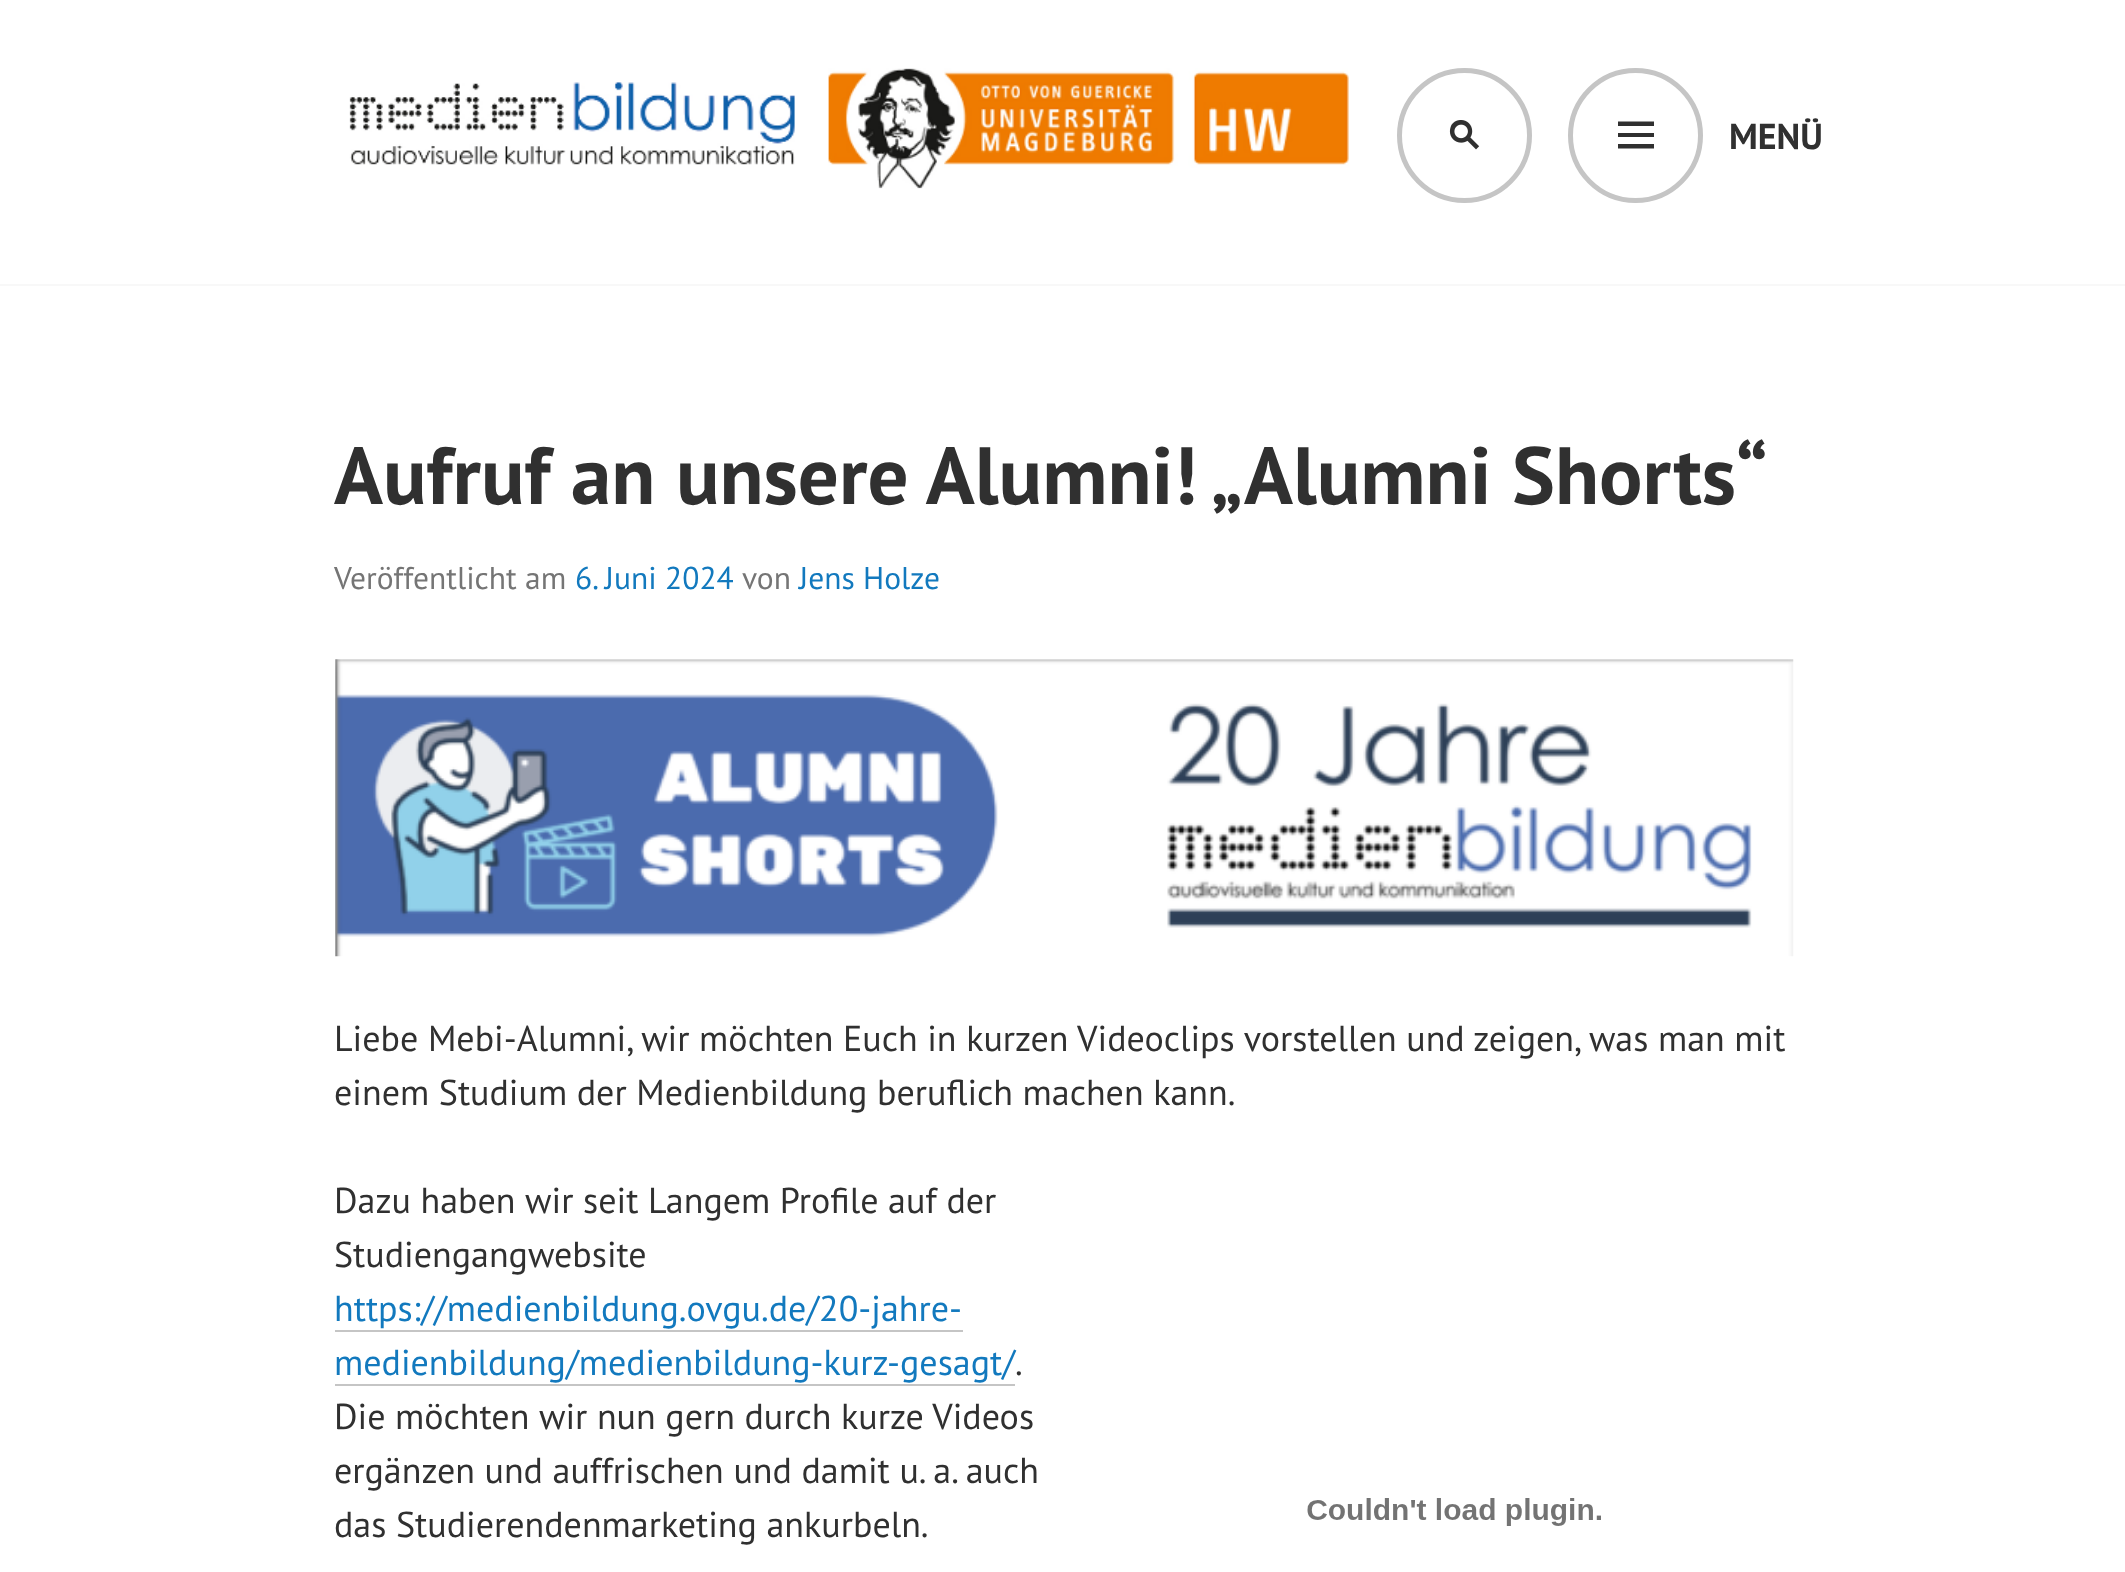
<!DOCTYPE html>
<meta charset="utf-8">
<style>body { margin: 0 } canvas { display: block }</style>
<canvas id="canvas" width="2125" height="1572"></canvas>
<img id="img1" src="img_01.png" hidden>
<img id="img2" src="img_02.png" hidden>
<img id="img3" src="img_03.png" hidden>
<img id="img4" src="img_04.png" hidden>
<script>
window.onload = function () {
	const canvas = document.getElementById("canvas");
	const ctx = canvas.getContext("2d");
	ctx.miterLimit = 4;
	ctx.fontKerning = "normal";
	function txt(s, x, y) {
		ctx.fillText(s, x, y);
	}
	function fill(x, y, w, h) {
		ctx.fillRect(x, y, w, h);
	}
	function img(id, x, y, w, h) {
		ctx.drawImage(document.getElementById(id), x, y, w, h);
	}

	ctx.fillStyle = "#FFFFFF";
	fill(0, 0, 2125, 1572);
	ctx.fillStyle = "#F8F8F8";
	fill(0, 284, 2125, 2);
	img("img1", 349, 68, 1000, 121);
	ctx.beginPath();
	ctx.arc(1464.5, 135.5, 65, 0, Math.PI * 2);
	ctx.strokeStyle = "#C5C5C5";
	ctx.lineWidth = 5;
	ctx.stroke();
	img("img2", 1449, 120, 31, 30);
	ctx.beginPath();
	ctx.arc(1635.5, 135.5, 65, 0, Math.PI * 2);
	ctx.stroke();
	ctx.fillStyle = "#303030";
	ctx.beginPath();
	ctx.moveTo(1618, 121.5);
	ctx.lineTo(1654, 121.5);
	ctx.lineTo(1654, 126);
	ctx.lineTo(1618, 126);
	ctx.closePath();
	ctx.moveTo(1618, 133);
	ctx.lineTo(1654, 133);
	ctx.lineTo(1654, 137);
	ctx.lineTo(1618, 137);
	ctx.closePath();
	ctx.moveTo(1618, 144);
	ctx.lineTo(1654, 144);
	ctx.lineTo(1654, 148.5);
	ctx.lineTo(1618, 148.5);
	ctx.closePath();
	ctx.fill();
	img("img3", 335, 659, 1459, 298);
	ctx.fillStyle = "#C5C5C5";
	fill(335, 1330, 628, 2);
	fill(335, 1384, 680, 2);
	img("img4", 1307, 1498, 294, 28);
	ctx.font = "bold 36px PT Sans";
	ctx.fillStyle = "#303030";
	txt("MENÜ", 1729, 149);
	ctx.font = "bold 81px PT Sans";
	txt("Aufruf an unsere Alumni! „Alumni Shorts“", 334, 504);
	ctx.font = "31.5px PT Sans";
	ctx.fillStyle = "#757575";
	txt("Veröffentlicht am", 334, 589);
	ctx.fillStyle = "#1279BE";
	txt("6. Juni 2024", 575, 589);
	ctx.fillStyle = "#757575";
	txt("von", 742, 589);
	ctx.fillStyle = "#1279BE";
	txt("Jens Holze", 799, 589);
	ctx.font = "36px PT Sans";
	ctx.fillStyle = "#303030";
	txt("Liebe Mebi-Alumni, wir möchten Euch in kurzen Videoclips vorstellen und zeigen, was man mit", 334, 1051);
	txt("einem Studium der Medienbildung beruflich machen kann.", 334, 1105);
	txt("Dazu haben wir seit Langem Profile auf der", 334, 1213);
	txt("Studiengangwebsite", 334, 1267);
	ctx.fillStyle = "#1279BE";
	txt("https://medienbildung.ovgu.de/20-jahre-", 334, 1321);
	txt("medienbildung/medienbildung-kurz-gesagt/", 334, 1375);
	ctx.fillStyle = "#303030";
	txt(".", 1015, 1375);
	txt("Die möchten wir nun gern durch kurze Videos", 334, 1429);
	txt("ergänzen und auffrischen und damit u. a. auch", 334, 1483);
	txt("das Studierendenmarketing ankurbeln.", 334, 1537);
};
</script>
